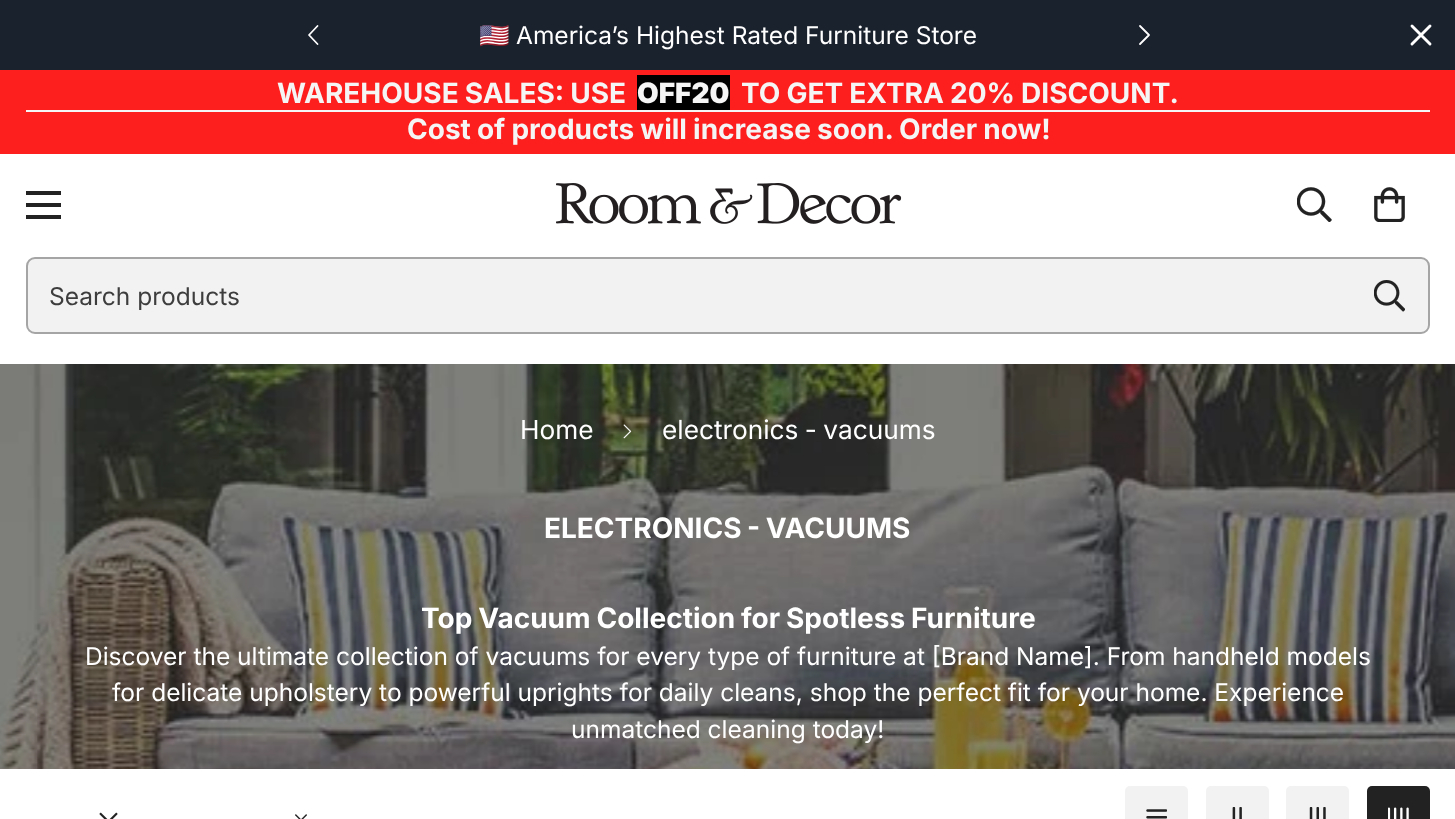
<!DOCTYPE html>
<meta charset="utf-8">
<style>body { margin: 0 } canvas { display: block }</style>
<canvas id="canvas" width="1455" height="819"></canvas>
<img id="img1" src="img_01.png" hidden>
<img id="img2" src="img_02.png" hidden>
<img id="img3" src="img_03.png" hidden>
<img id="img4" src="img_04.png" hidden>
<img id="img5" src="img_05.png" hidden>
<img id="img6" src="img_06.png" hidden>
<img id="img7" src="img_07.png" hidden>
<img id="img8" src="img_08.png" hidden>
<img id="img9" src="img_09.png" hidden>
<img id="img10" src="img_10.png" hidden>
<img id="img11" src="img_11.png" hidden>
<img id="img12" src="img_12.png" hidden>
<script>
window.onload = function () {
	const canvas = document.getElementById("canvas");
	const ctx = canvas.getContext("2d");
	ctx.miterLimit = 4;
	ctx.fontKerning = "normal";
	function txt(s, x, y) {
		ctx.fillText(s, x, y);
	}
	function fill(x, y, w, h) {
		ctx.fillRect(x, y, w, h);
	}
	function round(x, y, w, h, r) {
		ctx.beginPath();
		ctx.roundRect(x, y, w, h, r);
		ctx.fill();
	}
	function img(id, x, y, w, h) {
		ctx.drawImage(document.getElementById(id), x, y, w, h);
	}

	ctx.fillStyle = "#FFFFFF";
	fill(0, 0, 1455, 819);
	ctx.fillStyle = "#1A222E";
	fill(0, 0, 1455, 70);
	ctx.beginPath();
	ctx.moveTo(317.5, 44);
	ctx.lineTo(309, 35);
	ctx.lineTo(317.5, 26);
	ctx.strokeStyle = "#FFFFFF";
	ctx.lineWidth = 1.8;
	ctx.lineCap = "round";
	ctx.lineJoin = "round";
	ctx.stroke();
	ctx.beginPath();
	ctx.moveTo(1140, 44);
	ctx.lineTo(1149, 35);
	ctx.lineTo(1140, 26);
	ctx.stroke();
	ctx.beginPath();
	ctx.moveTo(1412, 44);
	ctx.lineTo(1430, 26);
	ctx.moveTo(1412, 26);
	ctx.lineTo(1430, 44);
	ctx.lineWidth = 2.9;
	ctx.stroke();
	ctx.fillStyle = "#FD1E1E";
	fill(0, 70, 1455, 84);
	ctx.fillStyle = "#000000";
	fill(637, 75, 93, 35);
	ctx.fillStyle = "#F5F5F5";
	fill(26, 110, 1404, 2);
	ctx.fillStyle = "#222222";
	fill(26, 203, 35, 4);
	fill(26, 191, 35, 4);
	fill(26, 215, 35, 4);
	img("img1", 556, 183, 346, 41);
	img("img2", 1297, 187, 35, 35);
	img("img3", 1374, 187, 31, 35);
	ctx.fillStyle = "#F2F2F2";
	ctx.beginPath();
	ctx.roundRect(27, 258, 1402, 75, 8);
	ctx.fill();
	ctx.strokeStyle = "#A5A5A5";
	ctx.lineWidth = 2;
	ctx.lineJoin = "miter";
	ctx.stroke();
	img("img4", 1374, 280, 31, 32);
	img("img5", 0, 364, 1455, 405);
	img("img6", 623, 424, 9, 15);
	img("img7", 99, 812, 19, 7);
	img("img8", 295, 814, 12, 5);
	round(1125, 786, 63, 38, 5);
	img("img9", 1146, 809, 21, 10);
	round(1206, 786, 63, 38, 5);
	img("img10", 1232, 807, 10, 12);
	round(1286, 786, 63, 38, 5);
	img("img11", 1309, 807, 17, 12);
	ctx.fillStyle = "#222222";
	round(1367, 786, 63, 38, 5);
	img("img12", 1388, 807, 21, 12);
	ctx.font = "24.5px Noto Color Emoji";
	ctx.fillStyle = "#FFFFFF";
	txt("🇺🇸", 479, 44);
	ctx.font = "24.5px Inter";
	txt("America’s Highest Rated Furniture Store", 516, 44);
	ctx.wordSpacing = "-0.5px";
	ctx.font = "bold 28px Inter";
	ctx.fillStyle = "#F5F5F5";
	txt("WAREHOUSE SALES: USE", 277, 103);
	ctx.wordSpacing = "0px";
	ctx.font = "900 28px Inter";
	txt("OFF20", 637, 103);
	ctx.wordSpacing = "-0.5px";
	ctx.font = "bold 28px Inter";
	txt("TO GET EXTRA 20% DISCOUNT.", 741, 103);
	txt("Cost of products will increase soon. Order now!", 407, 139);
	ctx.wordSpacing = "0px";
	ctx.font = "24.5px Inter";
	ctx.fillStyle = "#3D3D3D";
	txt("Search products", 49, 305);
	ctx.font = "26.25px Inter";
	ctx.fillStyle = "#FFFFFF";
	txt("Home", 520, 439);
	ctx.wordSpacing = "-1px";
	txt("electronics - vacuums", 662, 439);
	ctx.font = "bold 28px Inter";
	txt("ELECTRONICS - VACUUMS", 544, 538);
	ctx.wordSpacing = "-0.75px";
	txt("Top Vacuum Collection for Spotless Furniture", 421, 628);
	ctx.wordSpacing = "0px";
	ctx.font = "24.5px Inter";
	txt("Discover the ultimate collection of vacuums for every type of furniture at [Brand Name]. From handheld models", 85, 665);
	txt("for delicate upholstery to powerful uprights for daily cleans, shop the perfect fit for your home. Experience", 112, 701);
	txt("unmatched cleaning today!", 571, 738);
};
</script>
